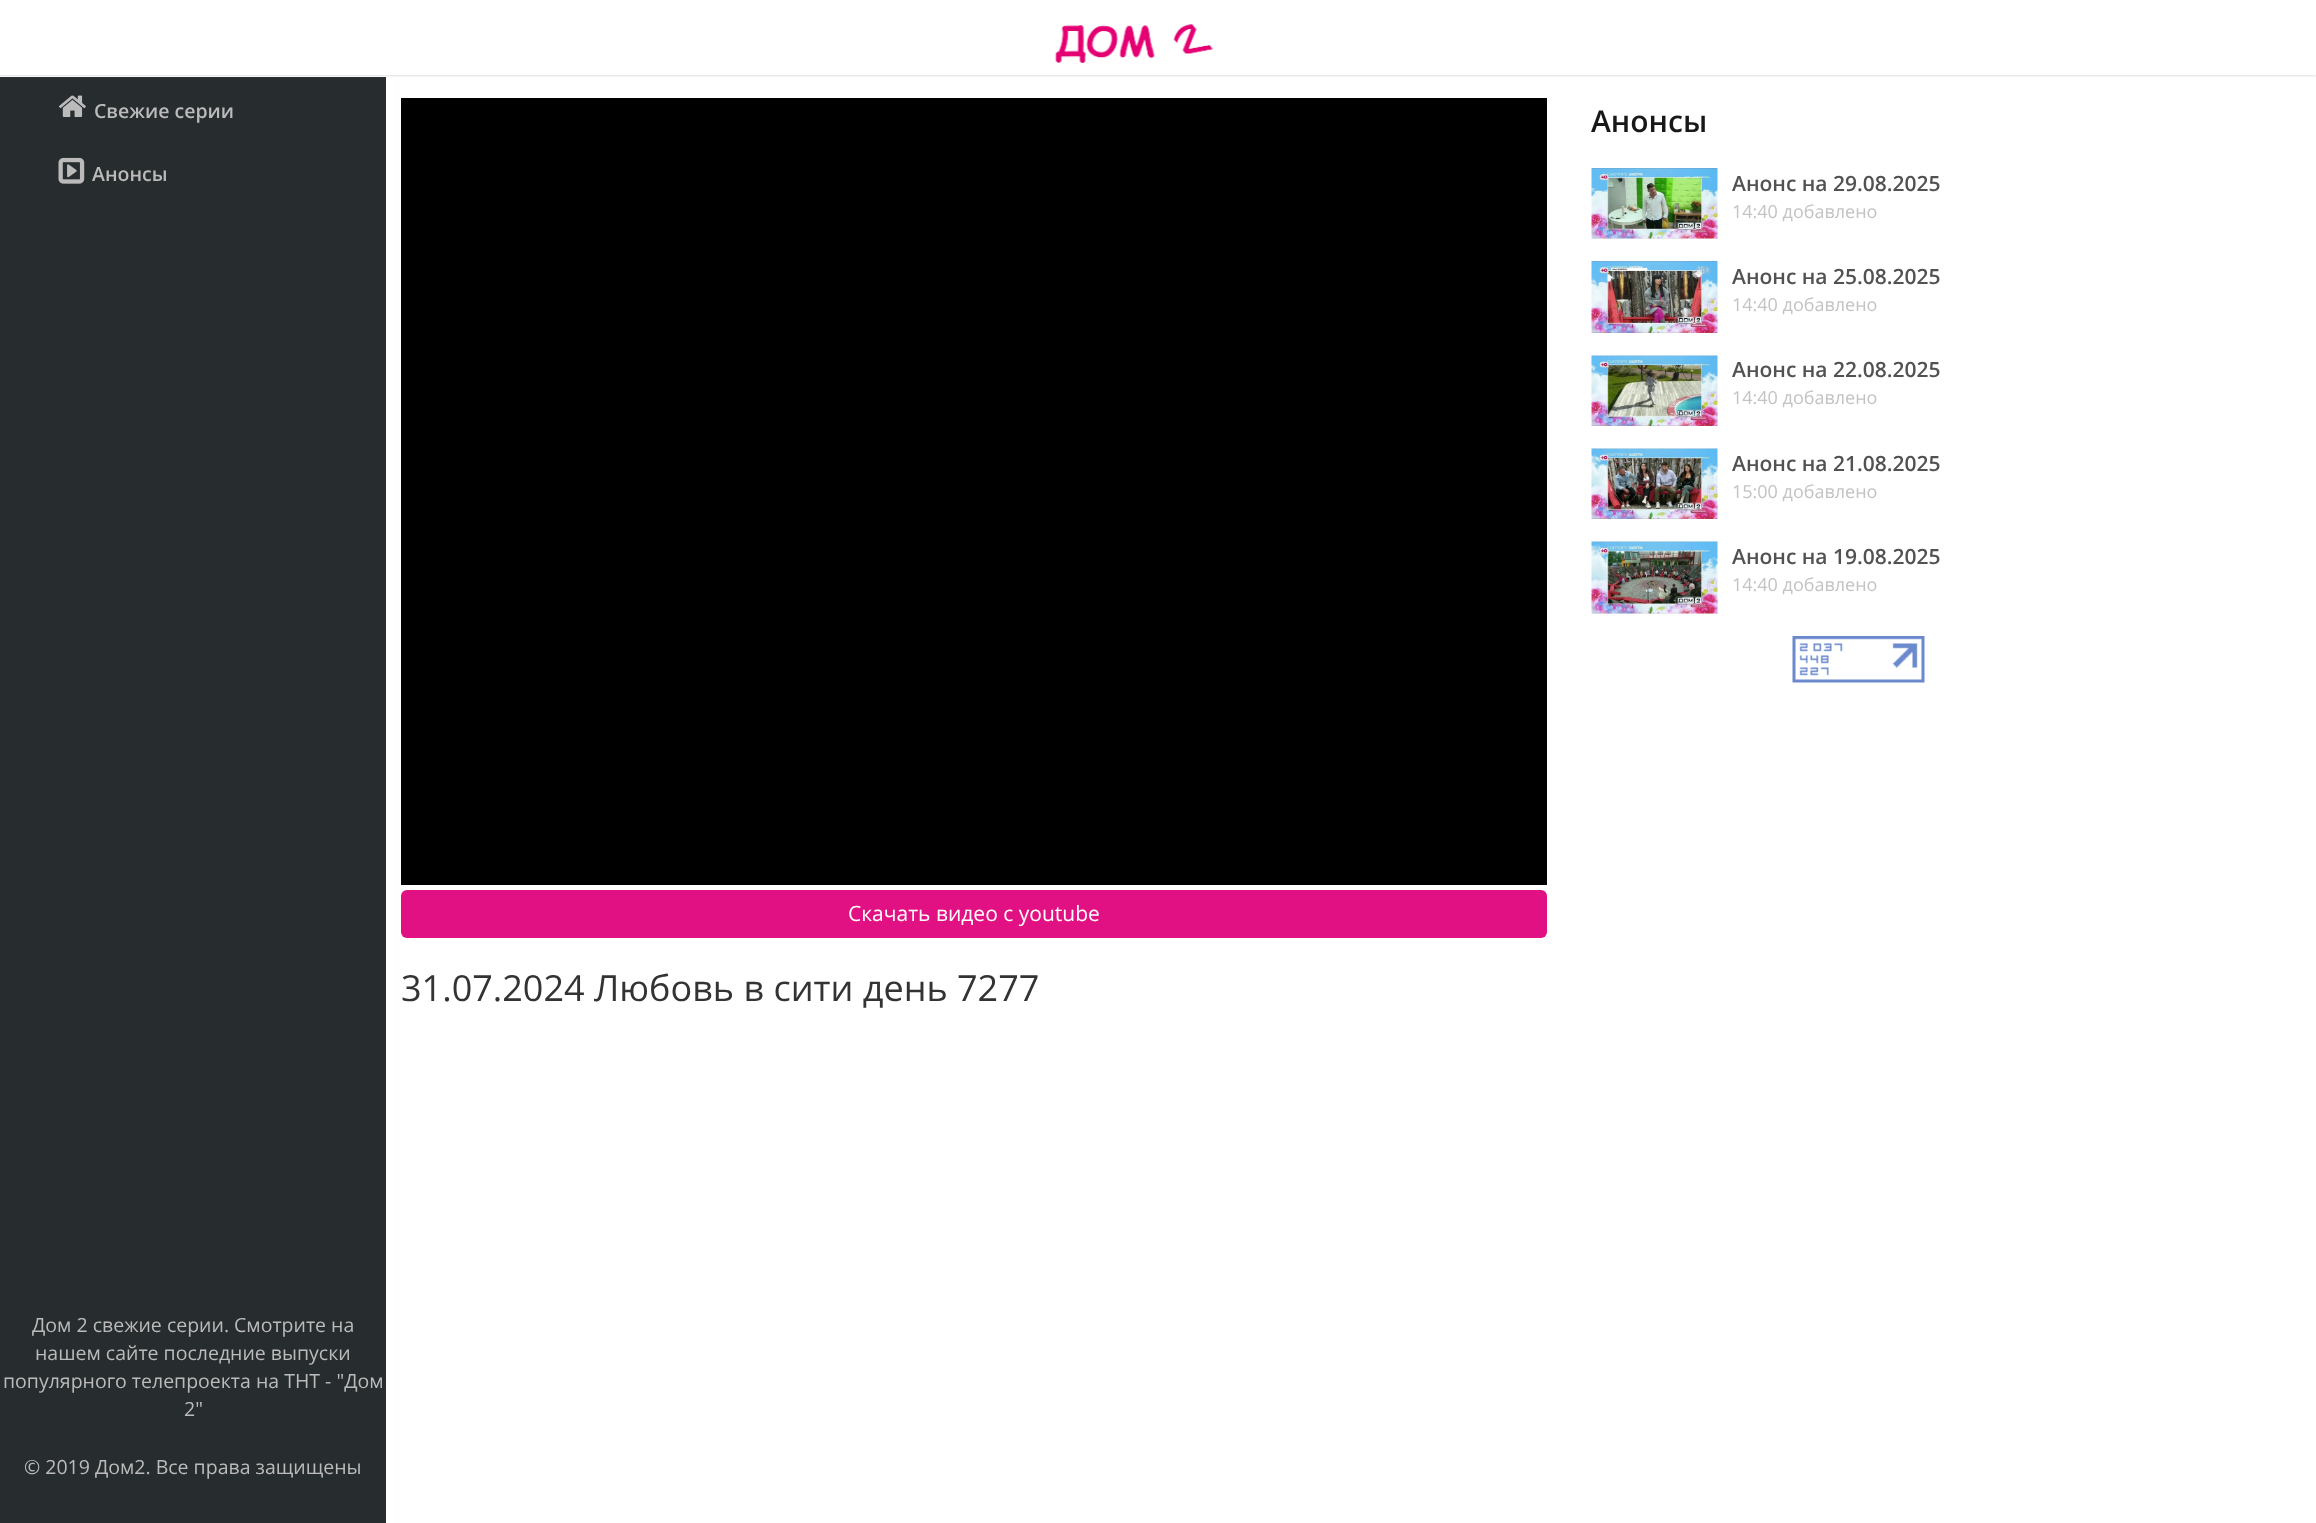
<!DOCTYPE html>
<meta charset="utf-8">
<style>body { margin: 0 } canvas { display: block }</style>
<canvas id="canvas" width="2316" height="1523"></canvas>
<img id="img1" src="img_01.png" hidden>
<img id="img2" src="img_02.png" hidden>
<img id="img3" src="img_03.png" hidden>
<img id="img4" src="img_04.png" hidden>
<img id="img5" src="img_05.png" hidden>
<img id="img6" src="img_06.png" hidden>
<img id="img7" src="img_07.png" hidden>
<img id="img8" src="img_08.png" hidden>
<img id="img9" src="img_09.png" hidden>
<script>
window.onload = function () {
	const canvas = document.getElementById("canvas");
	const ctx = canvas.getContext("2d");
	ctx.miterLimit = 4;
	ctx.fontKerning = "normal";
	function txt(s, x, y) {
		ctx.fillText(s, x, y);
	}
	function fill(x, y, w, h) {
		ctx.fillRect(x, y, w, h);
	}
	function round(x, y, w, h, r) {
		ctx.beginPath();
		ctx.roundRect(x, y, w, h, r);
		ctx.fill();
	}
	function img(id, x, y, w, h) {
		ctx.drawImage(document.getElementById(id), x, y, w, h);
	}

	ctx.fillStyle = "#FFFFFF";
	fill(0, 0, 2316, 1523);
	ctx.fillStyle = "#272C2E";
	fill(0, 77, 386, 1446);
	ctx.save();
	ctx.beginPath();
	ctx.rect(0, 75, 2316, 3);
	ctx.clip();
	ctx.fillStyle = "#C1C1C1";
	ctx.filter = "blur(1.5px)";
	ctx.beginPath();
	ctx.rect(0, 0, 2316, 75);
	ctx.fill();
	ctx.filter = "none";
	ctx.restore();
	img("img1", 1055, 24, 158, 39);
	img("img2", 59, 95, 27, 22);
	img("img3", 58, 157, 27, 27);
	img("img4", 1591, 168, 127, 71);
	img("img5", 1591, 261, 127, 72);
	img("img6", 1591, 355, 127, 71);
	img("img7", 1591, 448, 127, 71);
	img("img8", 1591, 541, 127, 73);
	img("img9", 1792, 636, 133, 47);
	ctx.fillStyle = "#000000";
	fill(401, 98, 1146, 787);
	ctx.fillStyle = "#E21183";
	round(401, 890, 1146, 48, 6);
	ctx.font = "600 19.5px Open Sans";
	ctx.fillStyle = "#BBBBBB";
	txt("Свежие серии", 94, 118);
	txt("Анонсы", 92, 181);
	ctx.font = "19.5px Open Sans";
	txt("Дом 2 свежие серии. Смотрите на", 32, 1332);
	txt("нашем сайте последние выпуски", 35, 1360);
	txt("популярного телепроекта на ТНТ - \"Дом", 3, 1388);
	txt("2\"", 184, 1416);
	txt("© 2019 Дом2. Все права защищены", 24, 1474);
	ctx.font = "600 30px Open Sans";
	ctx.fillStyle = "#181818";
	txt("Анонсы", 1591, 132);
	ctx.font = "600 21px Open Sans";
	ctx.fillStyle = "#525254";
	txt("Анонс на 29.08.2025", 1732, 191);
	ctx.font = "18px Open Sans";
	ctx.fillStyle = "#C3C3C3";
	txt("14:40 добавлено", 1732, 218);
	ctx.font = "600 21px Open Sans";
	ctx.fillStyle = "#525254";
	txt("Анонс на 25.08.2025", 1732, 284);
	ctx.font = "18px Open Sans";
	ctx.fillStyle = "#C3C3C3";
	txt("14:40 добавлено", 1732, 311);
	ctx.font = "600 21px Open Sans";
	ctx.fillStyle = "#525254";
	txt("Анонс на 22.08.2025", 1732, 377);
	ctx.font = "18px Open Sans";
	ctx.fillStyle = "#C3C3C3";
	txt("14:40 добавлено", 1732, 404);
	ctx.font = "600 21px Open Sans";
	ctx.fillStyle = "#525254";
	txt("Анонс на 21.08.2025", 1732, 471);
	ctx.font = "18px Open Sans";
	ctx.fillStyle = "#C3C3C3";
	txt("15:00 добавлено", 1732, 498);
	ctx.font = "600 21px Open Sans";
	ctx.fillStyle = "#525254";
	txt("Анонс на 19.08.2025", 1732, 564);
	ctx.font = "18px Open Sans";
	ctx.fillStyle = "#C3C3C3";
	txt("14:40 добавлено", 1732, 591);
	ctx.font = "21px Open Sans";
	ctx.fillStyle = "#FFFFFF";
	txt("Скачать видео c youtube", 848, 921);
	ctx.font = "36px Open Sans";
	ctx.fillStyle = "#333333";
	txt("31.07.2024 Любовь в сити день 7277", 401, 1001);
};
</script>
